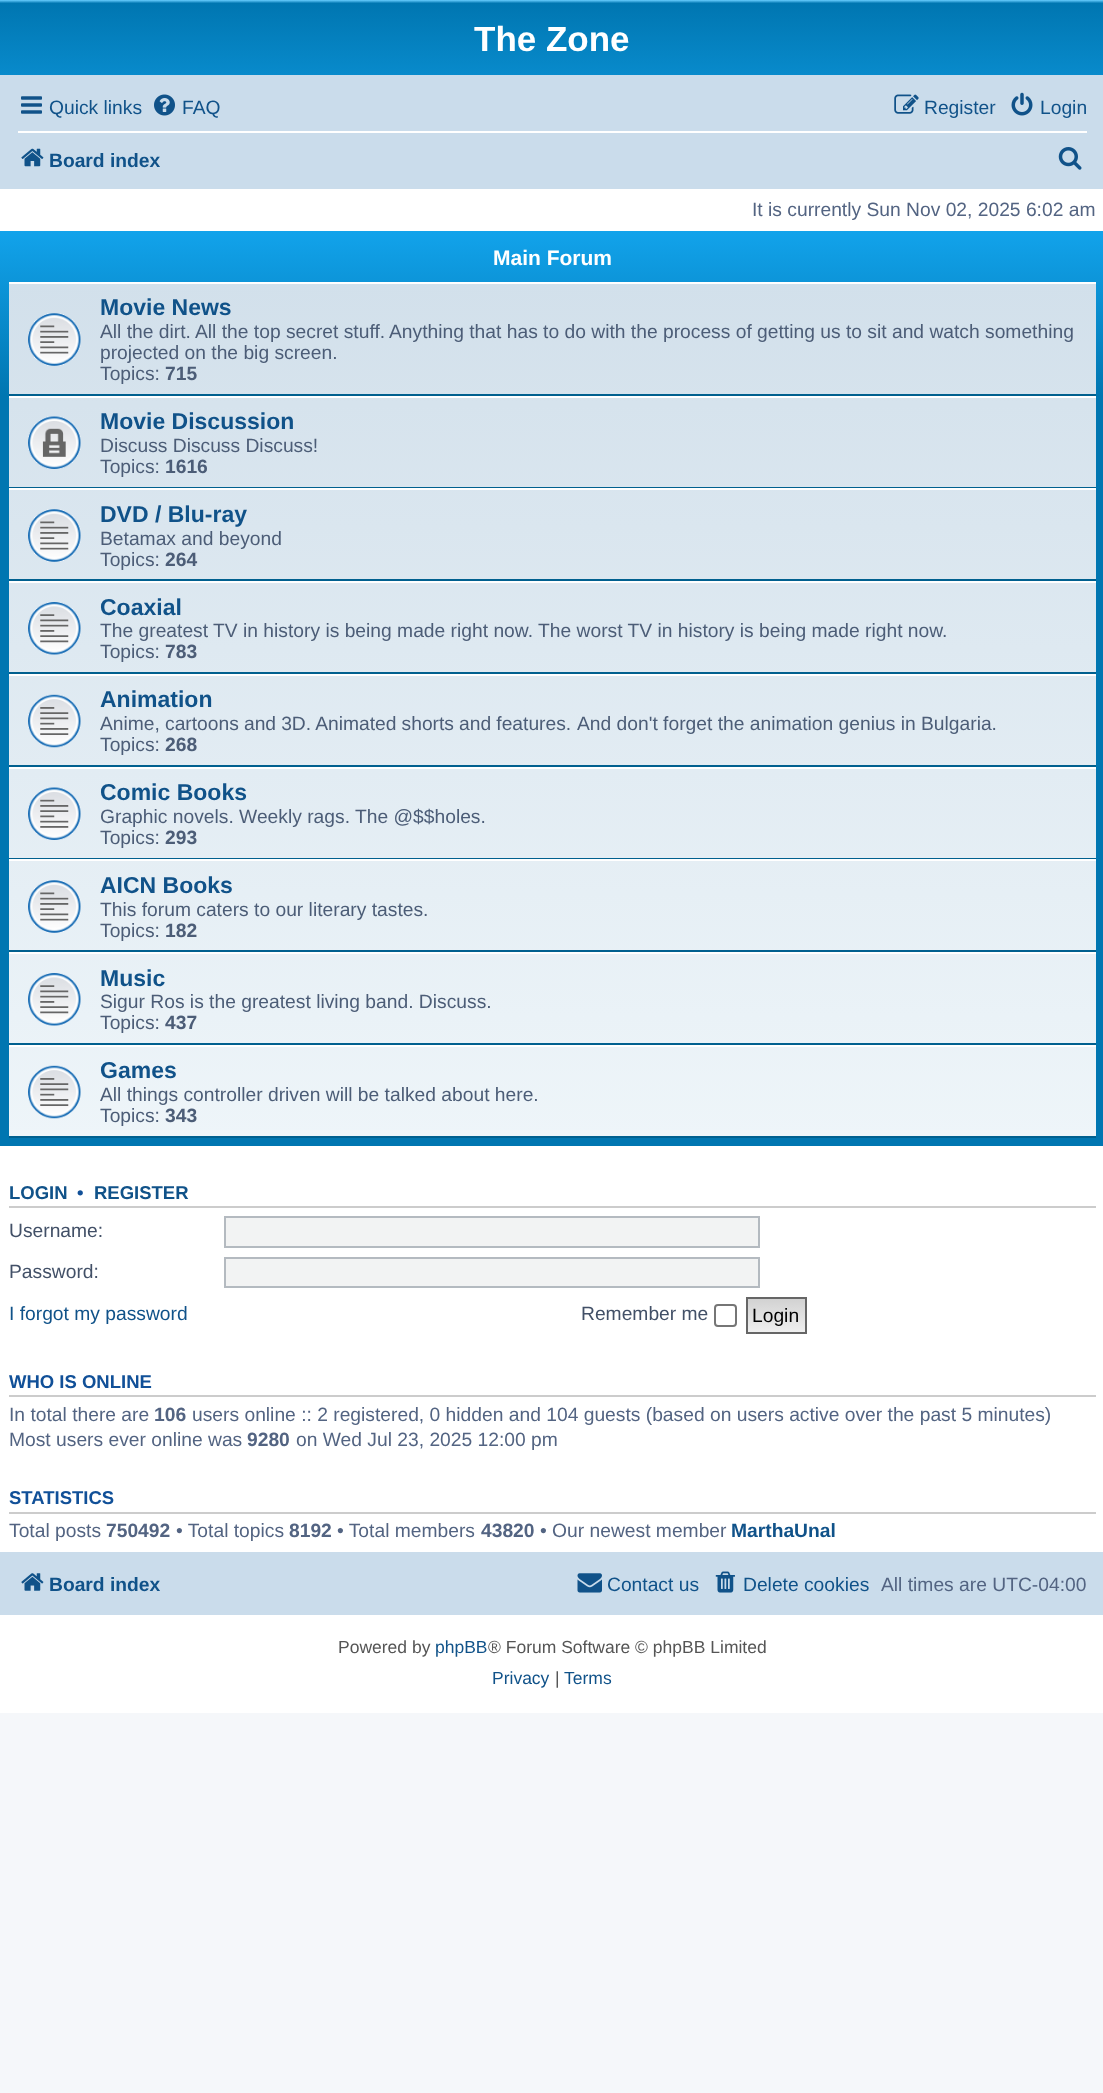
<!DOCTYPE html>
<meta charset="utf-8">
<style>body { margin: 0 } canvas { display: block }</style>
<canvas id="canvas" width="1103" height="2093"></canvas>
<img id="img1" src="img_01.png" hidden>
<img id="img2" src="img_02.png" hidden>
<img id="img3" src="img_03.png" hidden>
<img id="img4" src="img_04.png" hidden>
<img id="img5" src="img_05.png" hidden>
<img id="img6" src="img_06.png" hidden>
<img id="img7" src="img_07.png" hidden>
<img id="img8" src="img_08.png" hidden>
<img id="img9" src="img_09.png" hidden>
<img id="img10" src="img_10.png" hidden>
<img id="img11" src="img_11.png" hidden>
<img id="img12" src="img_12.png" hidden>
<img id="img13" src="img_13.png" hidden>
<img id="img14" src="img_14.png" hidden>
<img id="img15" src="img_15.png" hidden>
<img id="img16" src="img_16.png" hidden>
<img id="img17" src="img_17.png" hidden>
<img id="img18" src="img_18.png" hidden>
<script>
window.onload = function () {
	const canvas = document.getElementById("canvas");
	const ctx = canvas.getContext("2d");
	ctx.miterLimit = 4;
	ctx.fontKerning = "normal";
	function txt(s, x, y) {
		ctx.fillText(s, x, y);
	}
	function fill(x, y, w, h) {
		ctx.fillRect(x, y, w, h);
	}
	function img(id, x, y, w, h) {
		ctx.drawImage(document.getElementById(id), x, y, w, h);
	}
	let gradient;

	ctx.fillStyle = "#F5F7FA";
	fill(0, 0, 1103, 2093);
	ctx.fillStyle = "#FFFFFF";
	fill(0, 189, 1103, 1524);
	gradient = ctx.createLinearGradient(552, 0, 552, 161);
	gradient.addColorStop(0, "#6ACEFF");
	gradient.addColorStop(0.02, "#0076B1");
	gradient.addColorStop(1, "#12A3EB");
	ctx.fillStyle = gradient;
	fill(0, 0, 1103, 75);
	ctx.fillStyle = "#CADCEB";
	fill(0, 75, 1103, 114);
	img("img1", 21, 96, 21, 18);
	img("img2", 154, 94, 21, 22);
	img("img3", 894, 94, 25, 20);
	img("img4", 1011, 92, 22, 24);
	ctx.fillStyle = "#FFFFFF";
	fill(18, 131, 1069, 2);
	img("img5", 21, 148, 23, 19);
	img("img6", 1058, 147, 24, 23);
	gradient = ctx.createLinearGradient(552, 231, 552, 1146);
	gradient.addColorStop(0, "#6ACEFF");
	gradient.addColorStop(0, "#12A3EB");
	gradient.addColorStop(0.18, "#0076B1");
	gradient.addColorStop(1, "#0076B1");
	ctx.fillStyle = gradient;
	fill(0, 231, 1103, 915);
	gradient = ctx.createLinearGradient(552, 282, 552, 1138);
	gradient.addColorStop(0, "#D2E0EB");
	gradient.addColorStop(1, "#EEF5F9");
	ctx.fillStyle = gradient;
	fill(9, 284, 1087, 852);
	ctx.fillStyle = "#FFFFFF";
	fill(9, 282, 1087, 2);
	ctx.fillStyle = "#00608F";
	fill(9, 394, 1087, 2);
	img("img7", 28, 313, 53, 53);
	ctx.fillStyle = "#FFFFFF";
	fill(9, 396, 1087, 2);
	ctx.fillStyle = "#00608F";
	fill(9, 487, 1087, 1);
	img("img8", 28, 416, 53, 53);
	ctx.fillStyle = "#FFFFFF";
	fill(9, 488, 1087, 2);
	ctx.fillStyle = "#00608F";
	fill(9, 579, 1087, 2);
	img("img9", 28, 509, 53, 53);
	ctx.fillStyle = "#FFFFFF";
	fill(9, 581, 1087, 2);
	ctx.fillStyle = "#00608F";
	fill(9, 672, 1087, 2);
	img("img10", 28, 602, 53, 53);
	ctx.fillStyle = "#FFFFFF";
	fill(9, 674, 1087, 2);
	ctx.fillStyle = "#00608F";
	fill(9, 765, 1087, 2);
	img("img11", 28, 694, 53, 54);
	ctx.fillStyle = "#FFFFFF";
	fill(9, 767, 1087, 2);
	ctx.fillStyle = "#00608F";
	fill(9, 858, 1087, 1);
	img("img12", 28, 787, 53, 53);
	ctx.fillStyle = "#FFFFFF";
	fill(9, 859, 1087, 2);
	ctx.fillStyle = "#00608F";
	fill(9, 950, 1087, 2);
	img("img13", 28, 880, 53, 53);
	ctx.fillStyle = "#FFFFFF";
	fill(9, 952, 1087, 2);
	ctx.fillStyle = "#00608F";
	fill(9, 1043, 1087, 2);
	img("img14", 28, 973, 53, 53);
	ctx.fillStyle = "#FFFFFF";
	fill(9, 1045, 1087, 2);
	ctx.fillStyle = "#00608F";
	fill(9, 1136, 1087, 2);
	img("img15", 28, 1065, 53, 54);
	ctx.fillStyle = "#CCCCCC";
	fill(9, 1206, 1087, 2);
	ctx.fillStyle = "#F2F3F3";
	ctx.beginPath();
	ctx.rect(225, 1217, 534, 30);
	ctx.fill();
	ctx.strokeStyle = "#B4BAC0";
	ctx.lineWidth = 2;
	ctx.stroke();
	ctx.beginPath();
	ctx.rect(225, 1258, 534, 29);
	ctx.fill();
	ctx.stroke();
	ctx.beginPath();
	ctx.roundRect(715, 1305, 21, 21, 3);
	ctx.strokeStyle = "#767676";
	ctx.stroke();
	gradient = ctx.createLinearGradient(776, 1299, 776, 1332);
	gradient.addColorStop(0, "#D2D2D2");
	gradient.addColorStop(1, "#EFEFEF");
	ctx.fillStyle = gradient;
	fill(748, 1299, 57, 33);
	ctx.strokeStyle = "#666666";
	ctx.strokeRect(747, 1298, 59, 35);
	ctx.fillStyle = "#CCCCCC";
	fill(9, 1395, 1087, 2);
	fill(9, 1512, 1087, 2);
	ctx.fillStyle = "#CADCEB";
	fill(0, 1552, 1103, 63);
	img("img16", 21, 1573, 23, 18);
	img("img17", 577, 1573, 25, 20);
	img("img18", 715, 1571, 20, 22);
	ctx.font = "bold 35px Liberation Sans";
	ctx.fillStyle = "#FFFFFF";
	txt("The Zone", 474, 51);
	ctx.font = "19.25px Liberation Sans";
	ctx.fillStyle = "#105289";
	txt("Quick links", 49, 114);
	txt("FAQ", 182, 114);
	txt("Register", 924, 114);
	txt("Login", 1040, 114);
	ctx.font = "bold 19.25px Liberation Sans";
	txt("Board index", 49, 167);
	ctx.font = "19.25px Liberation Sans";
	ctx.fillStyle = "#536482";
	txt("It is currently Sun Nov 02, 2025 6:02 am", 752, 216);
	ctx.font = "bold 21px Liberation Sans";
	ctx.fillStyle = "#FFFFFF";
	txt("Main Forum", 493, 265);
	ctx.font = "bold 23px Liberation Sans";
	ctx.fillStyle = "#105289";
	txt("Movie News", 100, 315);
	ctx.font = "19.25px Liberation Sans";
	ctx.fillStyle = "#4C5D77";
	txt("All the dirt.", 100, 338);
	txt("All the top secret stuff.", 195, 338);
	txt("Anything that has to do with the process of getting us to sit and watch something", 389, 338);
	txt("projected on the big screen.", 100, 359);
	txt("Topics:", 100, 380);
	ctx.font = "bold 19.25px Liberation Sans";
	txt("715", 165, 380);
	ctx.font = "bold 23px Liberation Sans";
	ctx.fillStyle = "#105289";
	txt("Movie Discussion", 100, 429);
	ctx.font = "19.25px Liberation Sans";
	ctx.fillStyle = "#4C5D77";
	txt("Discuss Discuss Discuss!", 100, 452);
	txt("Topics:", 100, 473);
	ctx.font = "bold 19.25px Liberation Sans";
	txt("1616", 165, 473);
	ctx.font = "bold 23px Liberation Sans";
	ctx.fillStyle = "#105289";
	txt("DVD / Blu-ray", 100, 522);
	ctx.font = "19.25px Liberation Sans";
	ctx.fillStyle = "#4C5D77";
	txt("Betamax and beyond", 100, 545);
	txt("Topics:", 100, 566);
	ctx.font = "bold 19.25px Liberation Sans";
	txt("264", 165, 566);
	ctx.font = "bold 23px Liberation Sans";
	ctx.fillStyle = "#105289";
	txt("Coaxial", 100, 615);
	ctx.font = "19.25px Liberation Sans";
	ctx.fillStyle = "#4C5D77";
	txt("The greatest TV in history is being made right now.", 100, 637);
	txt("The worst TV in history is being made right now.", 538, 637);
	txt("Topics:", 100, 658);
	ctx.font = "bold 19.25px Liberation Sans";
	txt("783", 165, 658);
	ctx.font = "bold 23px Liberation Sans";
	ctx.fillStyle = "#105289";
	txt("Animation", 100, 707);
	ctx.wordSpacing = "-0.25px";
	ctx.font = "19.25px Liberation Sans";
	ctx.fillStyle = "#4C5D77";
	txt("Anime, cartoons and 3D. Animated shorts and features.", 100, 730);
	ctx.wordSpacing = "0px";
	txt("And don't forget the animation genius in Bulgaria.", 577, 730);
	txt("Topics:", 100, 751);
	ctx.font = "bold 19.25px Liberation Sans";
	txt("268", 165, 751);
	ctx.font = "bold 23px Liberation Sans";
	ctx.fillStyle = "#105289";
	txt("Comic Books", 100, 800);
	ctx.font = "19.25px Liberation Sans";
	ctx.fillStyle = "#4C5D77";
	txt("Graphic novels. Weekly rags. The @$$holes.", 100, 823);
	txt("Topics:", 100, 844);
	ctx.font = "bold 19.25px Liberation Sans";
	txt("293", 165, 844);
	ctx.font = "bold 23px Liberation Sans";
	ctx.fillStyle = "#105289";
	txt("AICN Books", 100, 893);
	ctx.font = "19.25px Liberation Sans";
	ctx.fillStyle = "#4C5D77";
	txt("This forum caters to our literary tastes.", 100, 916);
	txt("Topics:", 100, 937);
	ctx.font = "bold 19.25px Liberation Sans";
	txt("182", 165, 937);
	ctx.font = "bold 23px Liberation Sans";
	ctx.fillStyle = "#105289";
	txt("Music", 100, 986);
	ctx.font = "19.25px Liberation Sans";
	ctx.fillStyle = "#4C5D77";
	txt("Sigur Ros is the greatest living band. Discuss.", 100, 1008);
	txt("Topics:", 100, 1029);
	ctx.font = "bold 19.25px Liberation Sans";
	txt("437", 165, 1029);
	ctx.font = "bold 23px Liberation Sans";
	ctx.fillStyle = "#105289";
	txt("Games", 100, 1078);
	ctx.font = "19.25px Liberation Sans";
	ctx.fillStyle = "#4C5D77";
	txt("All things controller driven will be talked about here.", 100, 1101);
	txt("Topics:", 100, 1122);
	ctx.font = "bold 19.25px Liberation Sans";
	txt("343", 165, 1122);
	ctx.font = "bold 18.5px Liberation Sans";
	ctx.fillStyle = "#105289";
	txt("LOGIN", 9, 1199);
	ctx.fillStyle = "#115098";
	txt("•", 77, 1199);
	ctx.fillStyle = "#105289";
	txt("REGISTER", 94, 1199);
	ctx.font = "19.25px Liberation Sans";
	ctx.fillStyle = "#425067";
	txt("Username:", 9, 1237);
	txt("Password:", 9, 1278);
	ctx.fillStyle = "#105289";
	txt("I forgot my password", 9, 1320);
	ctx.fillStyle = "#425067";
	txt("Remember me", 581, 1320);
	ctx.fillStyle = "#000000";
	txt("Login", 752, 1322);
	ctx.font = "bold 18.5px Liberation Sans";
	ctx.fillStyle = "#115098";
	txt("WHO IS ONLINE", 9, 1388);
	ctx.font = "19.25px Liberation Sans";
	ctx.fillStyle = "#536482";
	txt("In total there are", 9, 1421);
	ctx.font = "bold 19.25px Liberation Sans";
	txt("106", 154, 1421);
	ctx.font = "19.25px Liberation Sans";
	txt("users online :: 2 registered, 0 hidden and 104 guests (based on users active over the past 5 minutes)", 192, 1421);
	txt("Most users ever online was", 9, 1446);
	ctx.font = "bold 19.25px Liberation Sans";
	txt("9280", 247, 1446);
	ctx.font = "19.25px Liberation Sans";
	txt("on Wed Jul 23, 2025 12:00 pm", 296, 1446);
	ctx.font = "bold 18.5px Liberation Sans";
	ctx.fillStyle = "#115098";
	txt("STATISTICS", 9, 1504);
	ctx.font = "19.25px Liberation Sans";
	ctx.fillStyle = "#536482";
	txt("Total posts", 9, 1537);
	ctx.font = "bold 19.25px Liberation Sans";
	txt("750492", 106, 1537);
	ctx.font = "19.25px Liberation Sans";
	txt("• Total topics", 176, 1537);
	ctx.font = "bold 19.25px Liberation Sans";
	txt("8192", 289, 1537);
	ctx.font = "19.25px Liberation Sans";
	txt("• Total members", 337, 1537);
	ctx.font = "bold 19.25px Liberation Sans";
	txt("43820", 481, 1537);
	ctx.font = "19.25px Liberation Sans";
	txt("• Our newest member", 540, 1537);
	ctx.font = "bold 19.25px Liberation Sans";
	ctx.fillStyle = "#105289";
	txt("MarthaUnal", 731, 1537);
	txt("Board index", 49, 1591);
	ctx.font = "19.25px Liberation Sans";
	txt("Contact us", 607, 1591);
	txt("Delete cookies", 743, 1591);
	ctx.fillStyle = "#536482";
	txt("All times are UTC-04:00", 881, 1591);
	ctx.font = "17.5px Liberation Sans";
	ctx.fillStyle = "#555555";
	txt("Powered by", 338, 1653);
	ctx.fillStyle = "#105289";
	txt("phpBB", 435, 1653);
	ctx.fillStyle = "#555555";
	txt("® Forum Software © phpBB Limited", 488, 1653);
	ctx.fillStyle = "#105289";
	txt("Privacy", 492, 1684);
	ctx.fillStyle = "#555555";
	txt("|", 555, 1684);
	ctx.fillStyle = "#105289";
	txt("Terms", 564, 1684);
};
</script>
